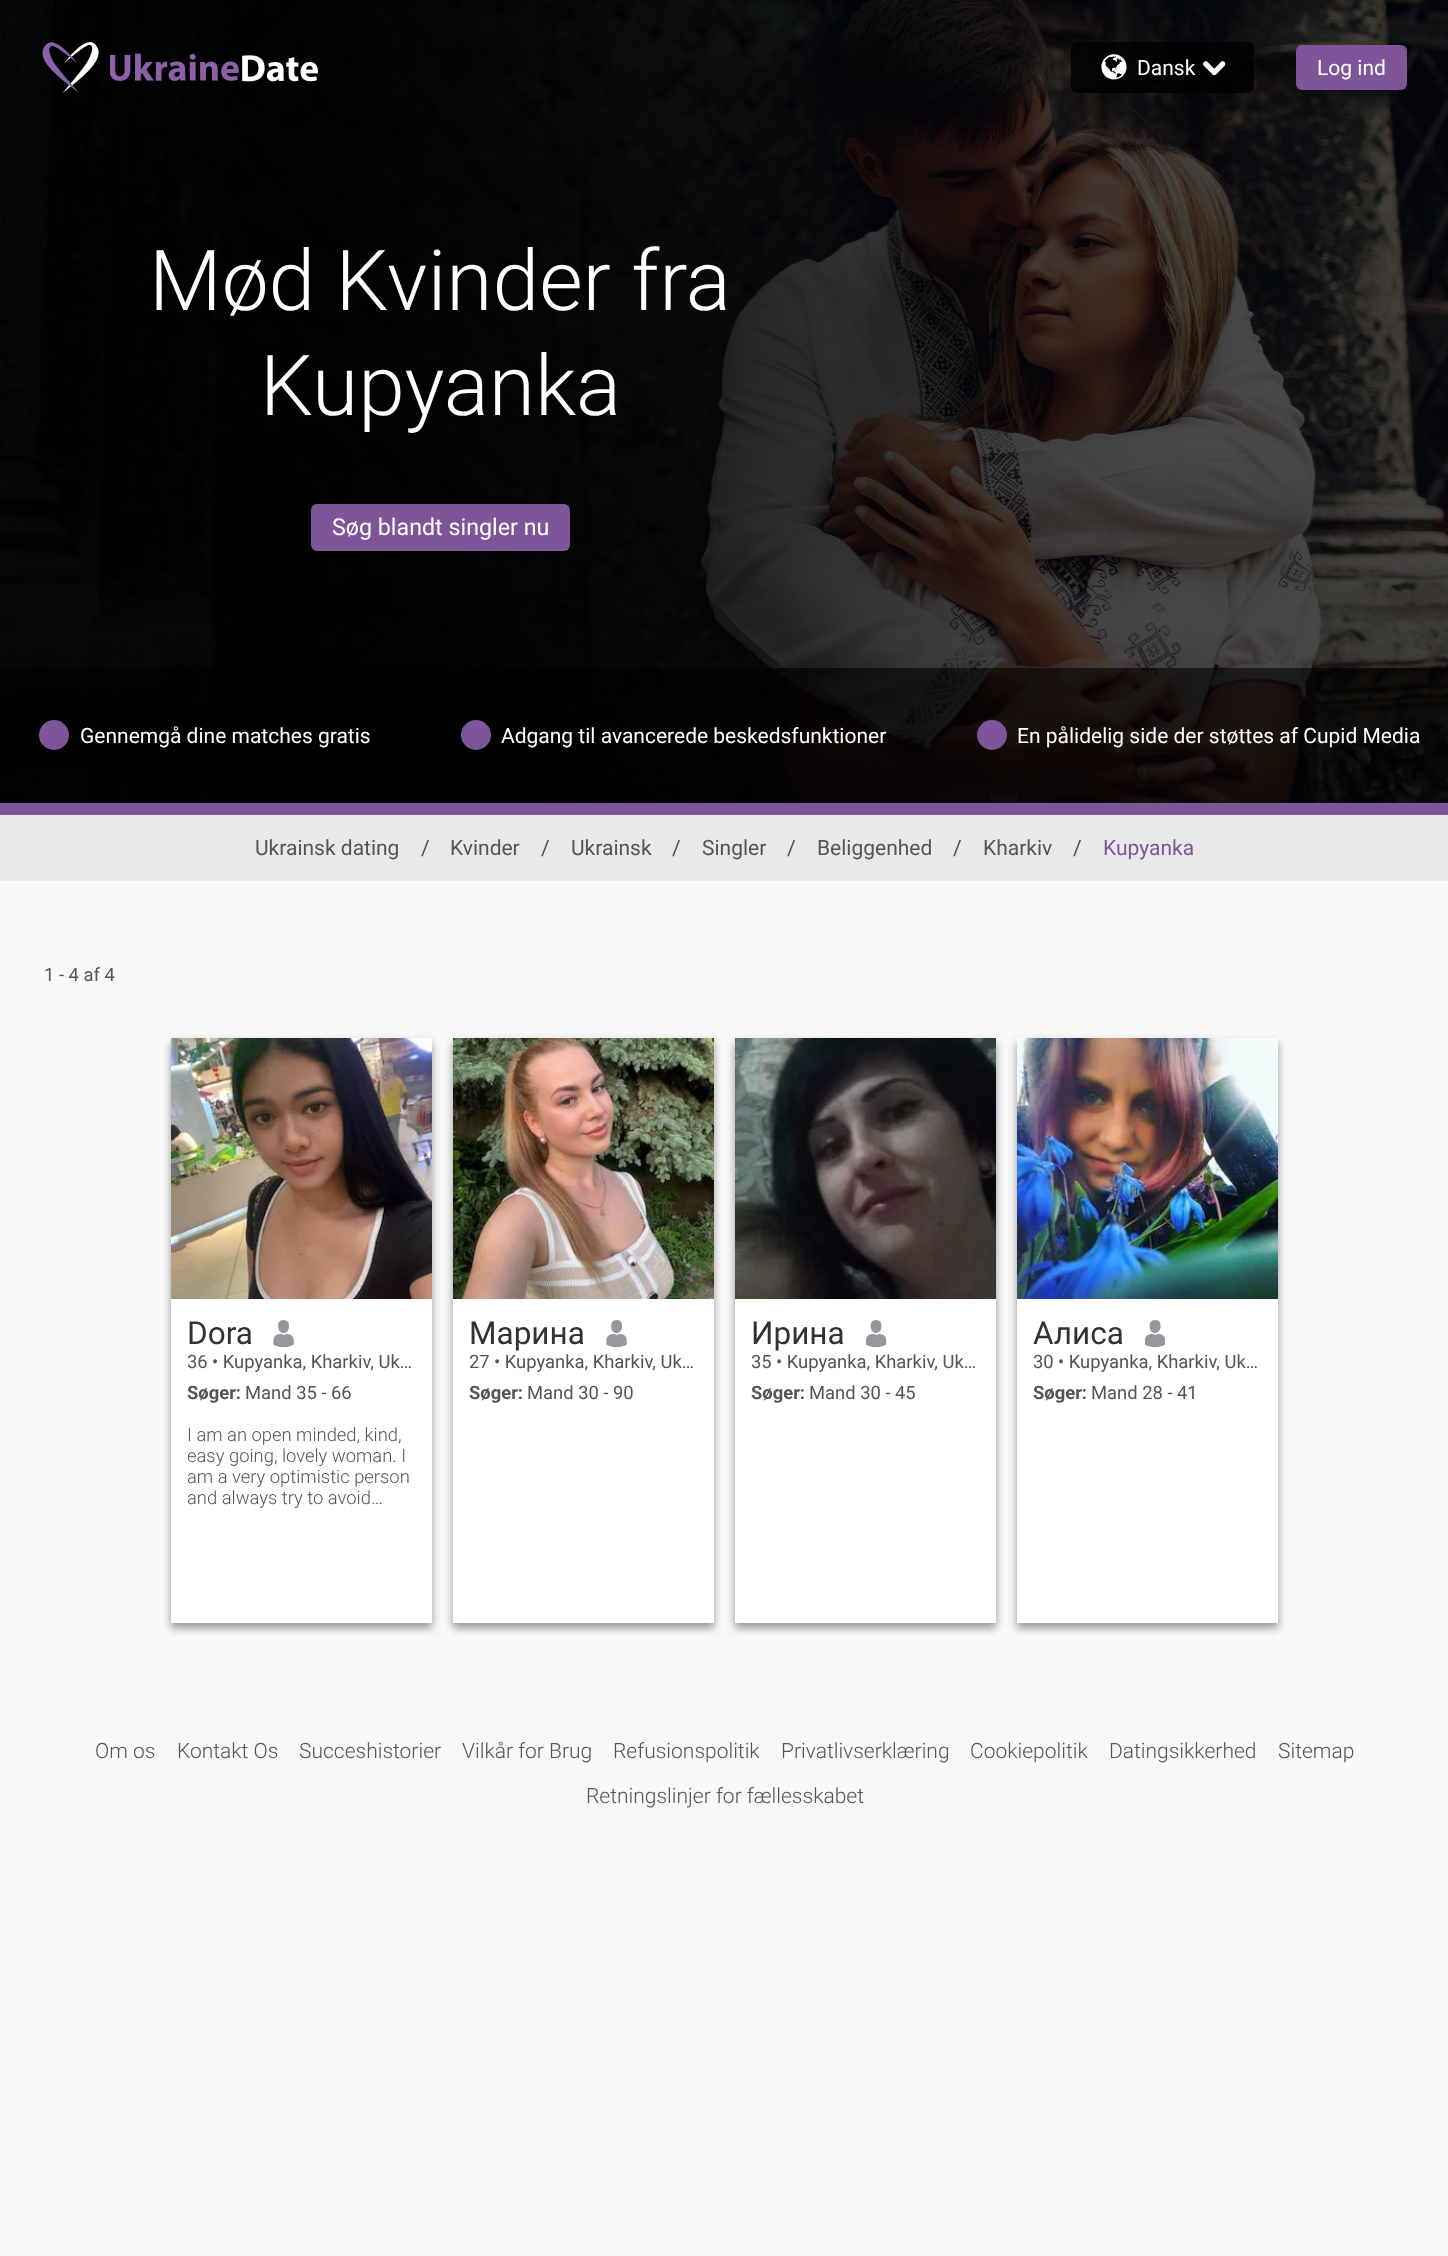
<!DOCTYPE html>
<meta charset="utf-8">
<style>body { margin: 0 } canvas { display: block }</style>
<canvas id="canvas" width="1448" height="2256"></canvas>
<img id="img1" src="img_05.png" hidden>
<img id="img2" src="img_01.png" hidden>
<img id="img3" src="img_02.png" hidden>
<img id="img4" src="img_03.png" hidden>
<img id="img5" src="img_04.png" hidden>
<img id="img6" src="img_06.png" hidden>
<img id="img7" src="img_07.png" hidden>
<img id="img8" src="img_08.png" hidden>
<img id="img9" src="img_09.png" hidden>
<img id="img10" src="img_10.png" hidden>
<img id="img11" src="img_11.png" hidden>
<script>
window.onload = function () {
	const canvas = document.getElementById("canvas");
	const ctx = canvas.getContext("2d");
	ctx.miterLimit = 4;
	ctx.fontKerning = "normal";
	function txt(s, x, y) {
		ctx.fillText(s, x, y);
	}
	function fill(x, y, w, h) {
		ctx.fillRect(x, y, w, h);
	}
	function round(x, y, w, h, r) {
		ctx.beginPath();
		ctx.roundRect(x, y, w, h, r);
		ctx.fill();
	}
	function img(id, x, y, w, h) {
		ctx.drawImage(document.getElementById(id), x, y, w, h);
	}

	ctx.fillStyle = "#F8F8F8";
	fill(0, 0, 1448, 2256);
	ctx.fillStyle = "#4D4D4D";
	fill(0, 802, 1448, 1);
	img("img1", 0, 0, 1448, 803);
	img("img2", 42, 42, 57, 51);
	img("img3", 110, 53, 208, 29);
	ctx.fillStyle = "rgba(0, 0, 0, 0.8)";
	round(1071, 42, 183, 51, 6);
	img("img4", 1101, 54, 26, 26);
	img("img5", 1203, 61, 23, 15);
	ctx.fillStyle = "rgba(0, 0, 0, 0.4)";
	ctx.filter = "blur(4.5px)";
	ctx.beginPath();
	ctx.roundRect(1296, 50, 111, 45, 6);
	ctx.fill();
	ctx.filter = "none";
	ctx.fillStyle = "#7D5598";
	round(1296, 45, 111, 45, 6);
	round(311, 504, 259, 47, 6);
	ctx.fillStyle = "rgba(0, 0, 0, 0.6)";
	fill(0, 668, 1448, 135);
	ctx.fillStyle = "#7D5598";
	ctx.beginPath();
	ctx.arc(54, 735, 15, 0, Math.PI * 2);
	ctx.fill();
	ctx.beginPath();
	ctx.arc(476, 735, 15, 0, Math.PI * 2);
	ctx.fill();
	ctx.beginPath();
	ctx.arc(992, 735, 15, 0, Math.PI * 2);
	ctx.fill();
	fill(0, 803, 1448, 12);
	ctx.fillStyle = "#E9E9E9";
	fill(0, 815, 1448, 66);
	ctx.fillStyle = "rgba(0, 0, 0, 0.4)";
	ctx.filter = "blur(4.5px)";
	ctx.beginPath();
	ctx.rect(171, 1043, 261, 585);
	ctx.fill();
	ctx.filter = "none";
	ctx.fillStyle = "#FFFFFF";
	fill(171, 1299, 261, 324);
	img("img6", 171, 1038, 261, 261);
	img("img7", 273, 1320, 21, 27);
	ctx.fillStyle = "rgba(0, 0, 0, 0.4)";
	ctx.filter = "blur(4.5px)";
	ctx.beginPath();
	ctx.rect(453, 1043, 261, 585);
	ctx.fill();
	ctx.filter = "none";
	ctx.fillStyle = "#FFFFFF";
	fill(453, 1299, 261, 324);
	img("img8", 453, 1038, 261, 261);
	img("img7", 606, 1320, 21, 27);
	ctx.fillStyle = "rgba(0, 0, 0, 0.4)";
	ctx.filter = "blur(4.5px)";
	ctx.beginPath();
	ctx.rect(735, 1043, 261, 585);
	ctx.fill();
	ctx.filter = "none";
	ctx.fillStyle = "#FFFFFF";
	fill(735, 1299, 261, 324);
	img("img9", 735, 1038, 261, 261);
	img("img10", 865, 1320, 22, 27);
	ctx.fillStyle = "rgba(0, 0, 0, 0.4)";
	ctx.filter = "blur(4.5px)";
	ctx.beginPath();
	ctx.rect(1017, 1043, 261, 585);
	ctx.fill();
	ctx.filter = "none";
	ctx.fillStyle = "#FFFFFF";
	fill(1017, 1299, 261, 324);
	img("img11", 1017, 1038, 261, 261);
	img("img10", 1144, 1320, 22, 27);
	ctx.font = "21px Roboto";
	txt("Dansk", 1137, 75);
	txt("Log ind", 1317, 75);
	ctx.font = "300 84px Roboto";
	txt("Mød Kvinder fra", 149, 310);
	txt("Kupyanka", 260, 415);
	ctx.font = "23.25px Roboto";
	txt("Søg blandt singler nu", 332, 535);
	ctx.font = "21px Roboto";
	txt("Gennemgå dine matches gratis", 80, 743);
	txt("Adgang til avancerede beskedsfunktioner", 501, 743);
	txt("En pålidelig side der støttes af Cupid Media", 1017, 743);
	ctx.fillStyle = "#505656";
	txt("Ukrainsk dating", 255, 855);
	txt("/", 421, 855);
	txt("Kvinder", 450, 855);
	txt("/", 541, 855);
	txt("Ukrainsk", 571, 855);
	txt("/", 672, 855);
	txt("Singler", 702, 855);
	txt("/", 787, 855);
	txt("Beliggenhed", 817, 855);
	txt("/", 953, 855);
	txt("Kharkiv", 983, 855);
	txt("/", 1073, 855);
	ctx.fillStyle = "#7D5598";
	txt("Kupyanka", 1103, 855);
	ctx.font = "18.4px Roboto";
	ctx.fillStyle = "#505656";
	txt("1 - 4 af 4", 44, 981);
	ctx.font = "31.5px Roboto";
	ctx.fillStyle = "#323232";
	txt("Dora", 187, 1344);
	ctx.save();
	ctx.beginPath();
	ctx.rect(188, 1352, 229, 21);
	ctx.clip();
	ctx.font = "18.4px Roboto";
	ctx.fillStyle = "#505656";
	txt("36", 187, 1368);
	ctx.restore();
	ctx.font = "18.4px Roboto";
	ctx.fillStyle = "#505656";
	txt("• Kupyanka, Kharkiv, Uk…", 212, 1368);
	ctx.font = "bold 18.4px Roboto";
	txt("Søger:", 187, 1399);
	ctx.font = "18.4px Roboto";
	txt("Mand 35 - 66", 245, 1399);
	ctx.font = "300 18.4px Roboto";
	txt("I am an open minded, kind,", 187, 1441);
	ctx.save();
	ctx.beginPath();
	ctx.rect(188, 1425, 229, 84);
	ctx.clip();
	txt("easy going, lovely woman. I", 187, 1462);
	txt("am a very optimistic person", 187, 1483);
	txt("and always try to avoid…", 187, 1504);
	ctx.restore();
	ctx.font = "31.5px Roboto";
	ctx.fillStyle = "#323232";
	txt("Марина", 469, 1344);
	ctx.save();
	ctx.beginPath();
	ctx.rect(470, 1352, 229, 21);
	ctx.clip();
	ctx.font = "18.4px Roboto";
	ctx.fillStyle = "#505656";
	txt("27", 469, 1368);
	ctx.restore();
	ctx.font = "18.4px Roboto";
	ctx.fillStyle = "#505656";
	txt("• Kupyanka, Kharkiv, Uk…", 494, 1368);
	ctx.font = "bold 18.4px Roboto";
	txt("Søger:", 469, 1399);
	ctx.font = "18.4px Roboto";
	txt("Mand 30 - 90", 527, 1399);
	ctx.font = "31.5px Roboto";
	ctx.fillStyle = "#323232";
	txt("Ирина", 751, 1344);
	ctx.save();
	ctx.beginPath();
	ctx.rect(752, 1352, 229, 21);
	ctx.clip();
	ctx.font = "18.4px Roboto";
	ctx.fillStyle = "#505656";
	txt("35", 751, 1368);
	ctx.restore();
	ctx.font = "18.4px Roboto";
	ctx.fillStyle = "#505656";
	txt("• Kupyanka, Kharkiv, Uk…", 776, 1368);
	ctx.font = "bold 18.4px Roboto";
	txt("Søger:", 751, 1399);
	ctx.font = "18.4px Roboto";
	txt("Mand 30 - 45", 809, 1399);
	ctx.font = "31.5px Roboto";
	ctx.fillStyle = "#323232";
	txt("Алиса", 1033, 1344);
	ctx.save();
	ctx.beginPath();
	ctx.rect(1034, 1352, 229, 21);
	ctx.clip();
	ctx.font = "18.4px Roboto";
	ctx.fillStyle = "#505656";
	txt("30", 1033, 1368);
	ctx.restore();
	ctx.font = "18.4px Roboto";
	ctx.fillStyle = "#505656";
	txt("• Kupyanka, Kharkiv, Uk…", 1058, 1368);
	ctx.font = "bold 18.4px Roboto";
	txt("Søger:", 1033, 1399);
	ctx.font = "18.4px Roboto";
	txt("Mand 28 - 41", 1091, 1399);
	ctx.font = "300 21px Roboto";
	txt("Om os", 95, 1758);
	txt("Kontakt Os", 177, 1758);
	txt("Succeshistorier", 299, 1758);
	txt("Vilkår for Brug", 462, 1758);
	txt("Refusionspolitik", 613, 1758);
	txt("Privatlivserklæring", 781, 1758);
	txt("Cookiepolitik", 970, 1758);
	txt("Datingsikkerhed", 1109, 1758);
	txt("Sitemap", 1278, 1758);
	txt("Retningslinjer for fællesskabet", 586, 1803);
};
</script>
